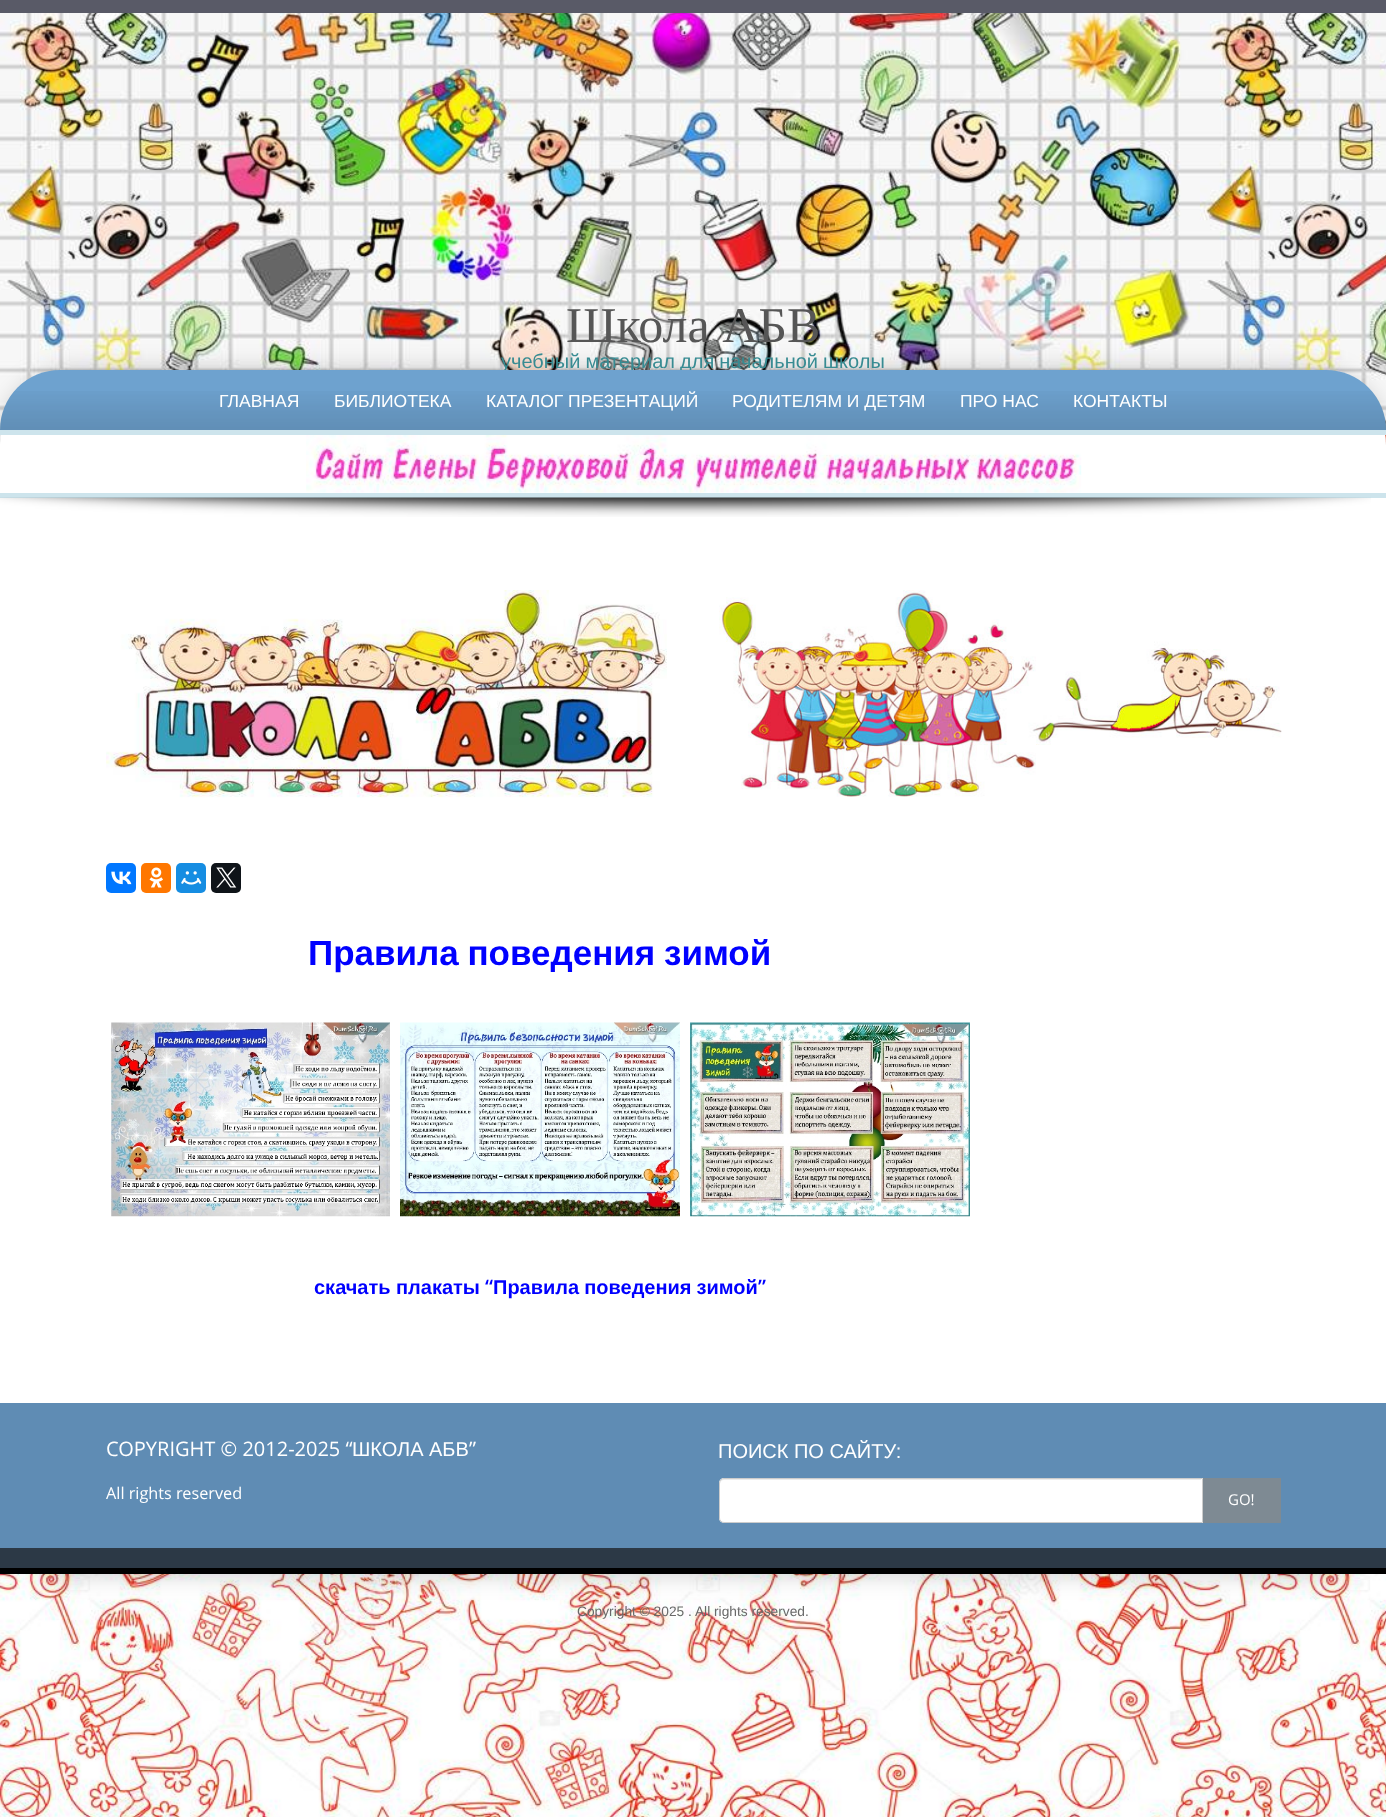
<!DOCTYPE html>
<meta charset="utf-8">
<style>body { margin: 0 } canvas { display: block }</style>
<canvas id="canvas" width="1386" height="1817"></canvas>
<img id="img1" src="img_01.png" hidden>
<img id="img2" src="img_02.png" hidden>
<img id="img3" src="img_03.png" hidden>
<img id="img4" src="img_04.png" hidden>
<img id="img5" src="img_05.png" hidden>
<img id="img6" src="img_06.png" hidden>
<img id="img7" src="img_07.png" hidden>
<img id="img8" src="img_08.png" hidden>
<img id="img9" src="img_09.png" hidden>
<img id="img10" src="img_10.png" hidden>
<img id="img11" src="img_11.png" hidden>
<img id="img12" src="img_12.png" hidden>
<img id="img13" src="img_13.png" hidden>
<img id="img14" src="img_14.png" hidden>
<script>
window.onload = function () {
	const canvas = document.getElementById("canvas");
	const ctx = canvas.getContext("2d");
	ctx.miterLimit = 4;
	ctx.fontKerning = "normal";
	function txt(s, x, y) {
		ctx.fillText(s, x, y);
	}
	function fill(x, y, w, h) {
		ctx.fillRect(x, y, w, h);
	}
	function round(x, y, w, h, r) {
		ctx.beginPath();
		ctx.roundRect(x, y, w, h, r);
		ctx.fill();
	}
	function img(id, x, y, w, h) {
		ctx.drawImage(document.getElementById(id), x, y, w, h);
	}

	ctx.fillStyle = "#FFFFFF";
	fill(0, 0, 1386, 1817);
	img("img1", 0, 1574, 1386, 243);
	img("img2", 0, 13, 1386, 432);
	ctx.fillStyle = "#595A67";
	fill(0, 0, 1386, 13);
	ctx.fillStyle = "rgba(0, 0, 0, 0.2)";
	ctx.filter = "blur(12.5px)";
	ctx.beginPath();
	ctx.roundRect(0, 370, 1386, 1204, 75);
	ctx.fill();
	ctx.filter = "none";
	ctx.font = "50px Liberation Serif";
	ctx.fillStyle = "#565656";
	txt("Школа АБВ", 566, 342);
	ctx.wordSpacing = "-0.5px";
	ctx.font = "20px Liberation Sans";
	ctx.fillStyle = "#378B92";
	txt("учебный материал для начальной школы", 501, 368);
	ctx.fillStyle = "#FFFFFF";
	ctx.beginPath();
	ctx.roundRect(0, 370, 1386, 1204, [75, 75, 0, 0]);
	ctx.fill();
	ctx.fillStyle = "#6EA2CF";
	ctx.beginPath();
	ctx.roundRect(0, 370, 1386, 60, [60, 60, 0, 0]);
	ctx.fill();
	img("img3", 0, 391, 1386, 39);
	ctx.wordSpacing = "0px";
	ctx.font = "17.5px Liberation Sans";
	ctx.fillStyle = "#FFFFFF";
	txt("ГЛАВНАЯ", 219, 407);
	txt("БИБЛИОТЕКА", 334, 407);
	txt("КАТАЛОГ ПРЕЗЕНТАЦИЙ", 486, 407);
	txt("РОДИТЕЛЯМ И ДЕТЯМ", 732, 407);
	txt("ПРО НАС", 960, 407);
	txt("КОНТАКТЫ", 1073, 407);
	ctx.fillStyle = "#CDE4EC";
	fill(0, 430, 1386, 5);
	fill(0, 493, 1386, 5);
	img("img4", 306, 435, 776, 58);
	img("img5", 0, 497, 1371, 20);
	img("img6", 106, 590, 561, 208);
	img("img7", 719, 590, 563, 207);
	ctx.fillStyle = "#0077FF";
	round(106, 863, 30, 30, 5);
	img("img8", 111, 871, 21, 14);
	ctx.fillStyle = "#FF7700";
	round(141, 863, 30, 30, 5);
	img("img9", 149, 867, 14, 21);
	ctx.fillStyle = "#168DE2";
	round(176, 863, 30, 30, 5);
	img("img10", 181, 871, 21, 14);
	ctx.fillStyle = "#0F1419";
	round(211, 863, 30, 30, 5);
	img("img11", 216, 867, 21, 21);
	ctx.wordSpacing = "-1px";
	ctx.font = "bold 35px Liberation Sans";
	ctx.fillStyle = "#0000FF";
	txt("Правила поведения зимой", 308, 965);
	img("img12", 111, 1022, 279, 195);
	img("img13", 400, 1022, 280, 195);
	img("img14", 690, 1022, 280, 195);
	ctx.wordSpacing = "0px";
	ctx.font = "600 20px Open Sans";
	txt("“", 485, 1294);
	ctx.wordSpacing = "-0.5px";
	ctx.font = "bold 20px Liberation Sans";
	txt("Правила поведения зимой", 493, 1294);
	ctx.wordSpacing = "0px";
	ctx.font = "600 20px Open Sans";
	txt("”", 758, 1294);
	ctx.font = "bold 20px Liberation Sans";
	txt("скачать", 314, 1294);
	txt("плакаты", 396, 1294);
	ctx.fillStyle = "#5F8CB4";
	fill(0, 1403, 1386, 145);
	ctx.font = "20px Open Sans";
	ctx.fillStyle = "#FFFFFF";
	txt("COPYRIGHT © 2012-2025 “", 106, 1456);
	ctx.font = "20px Liberation Sans";
	txt("ШКОЛА", 352, 1456);
	txt("АБВ", 429, 1456);
	ctx.font = "20px Open Sans";
	txt("”", 469, 1456);
	ctx.font = "16.25px Open Sans";
	txt("All rights reserved", 106, 1499);
	ctx.font = "20px Liberation Sans";
	txt("ПОИСК ПО САЙТУ:", 718, 1458);
	ctx.beginPath();
	ctx.roundRect(719, 1478, 484, 45, [5, 0, 0, 5]);
	ctx.fill();
	ctx.fillStyle = "#ECECEC";
	ctx.beginPath();
	ctx.moveTo(724, 1480);
	ctx.lineTo(1201, 1480);
	ctx.lineTo(1201, 1479);
	ctx.lineTo(724, 1479);
	ctx.bezierCurveTo(721, 1479, 720, 1481, 720, 1484);
	ctx.bezierCurveTo(720, 1482, 722, 1480, 724, 1480);
	ctx.closePath();
	ctx.fill();
	ctx.beginPath();
	ctx.roundRect(719.5, 1478.5, 483, 44, [4.5, 0, 0, 4.5]);
	ctx.strokeStyle = "#CCCCCC";
	ctx.stroke();
	ctx.fillStyle = "#7E8A93";
	fill(1203, 1478, 78, 45);
	ctx.font = "15px Open Sans";
	ctx.fillStyle = "#FFFFFF";
	txt("GO!", 1228, 1505);
	ctx.fillStyle = "#2C3946";
	fill(0, 1548, 1386, 20);
	ctx.fillStyle = "#000000";
	fill(0, 1568, 1386, 6);
	ctx.font = "13.75px Liberation Sans";
	ctx.fillStyle = "#696969";
	txt("Copyright © 2025 . All rights reserved.", 577, 1616);
};
</script>
